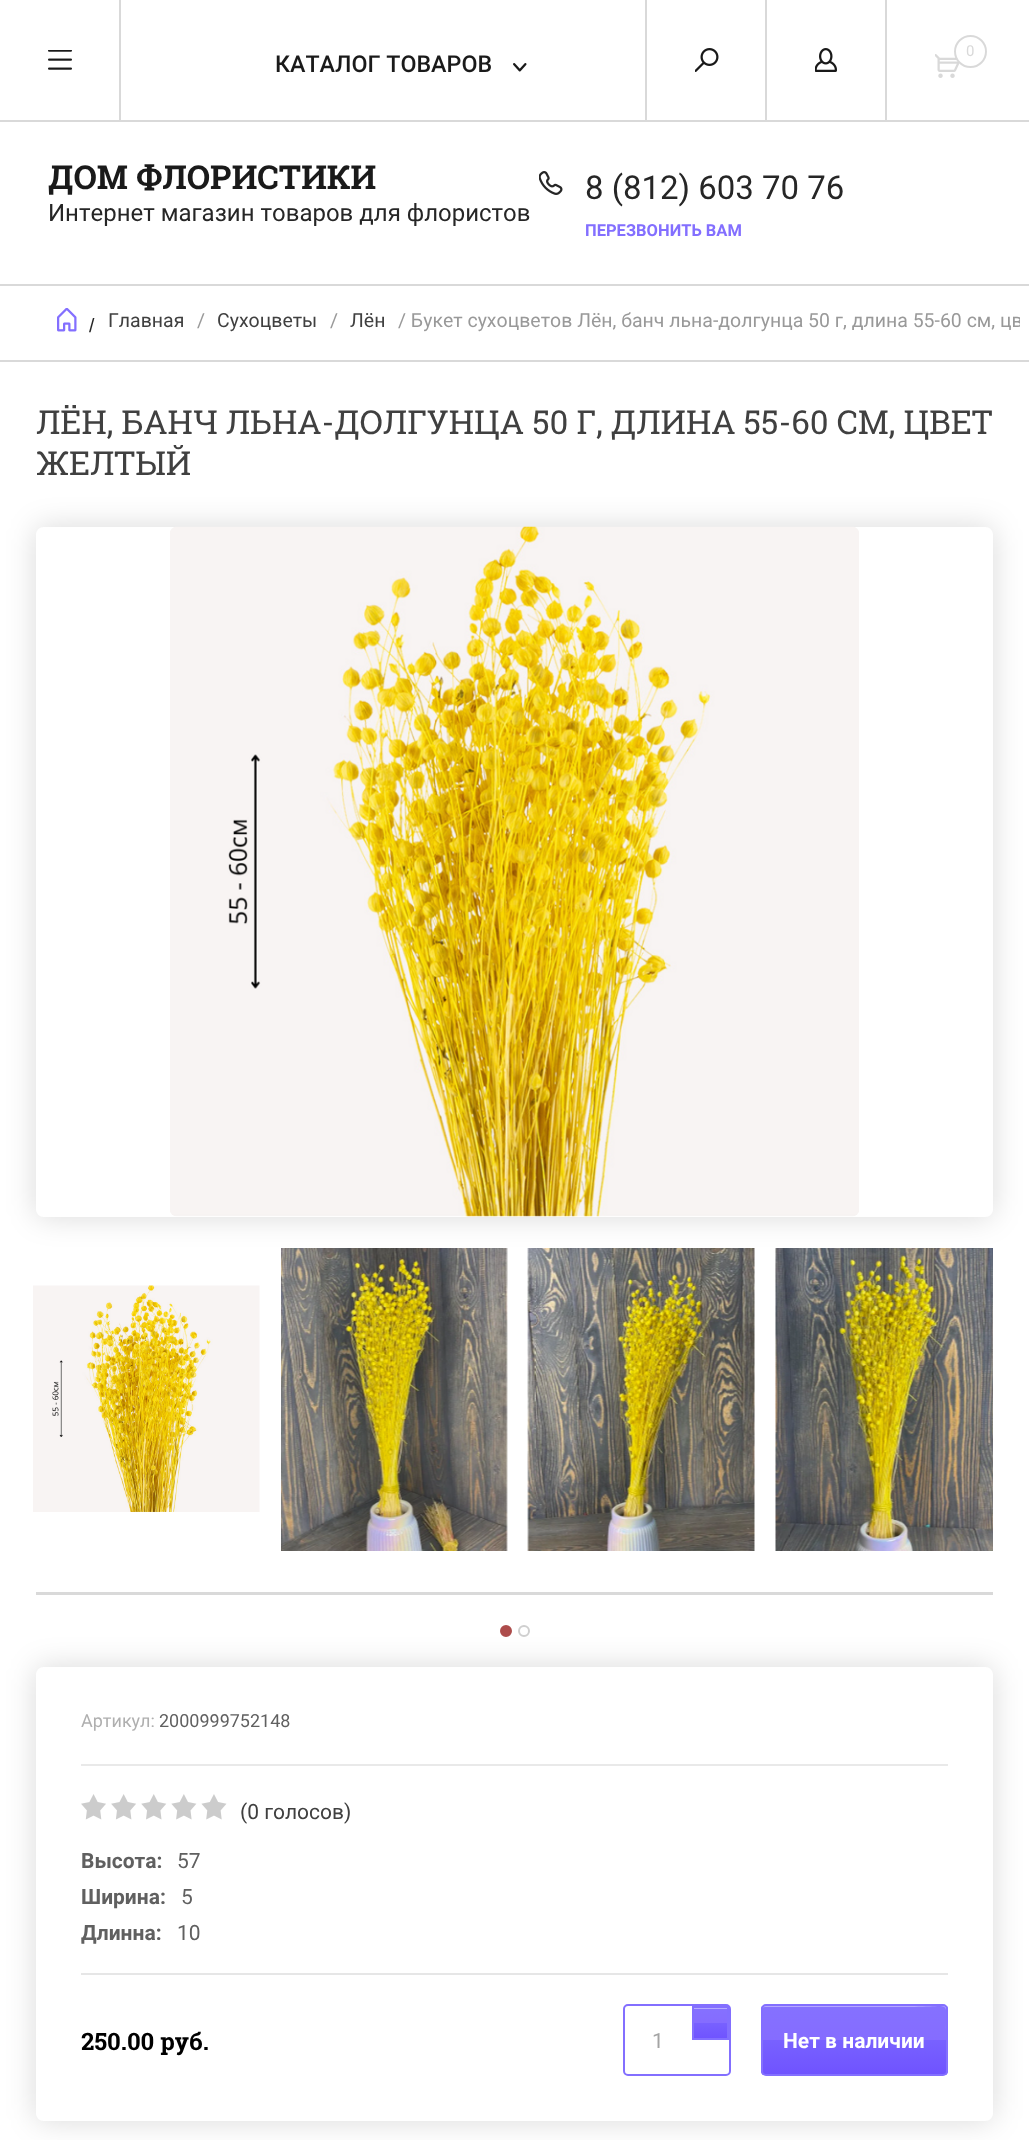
<!DOCTYPE html>
<meta charset="utf-8">
<style>body { margin: 0 } canvas { display: block }</style>
<canvas id="canvas" width="1029" height="2140"></canvas>
<img id="img1" src="img_01.png" hidden>
<img id="img2" src="img_02.png" hidden>
<img id="img3" src="img_03.png" hidden>
<img id="img4" src="img_04.png" hidden>
<img id="img5" src="img_05.png" hidden>
<img id="img6" src="img_06.png" hidden>
<img id="img7" src="img_07.png" hidden>
<img id="img8" src="img_08.png" hidden>
<img id="img9" src="img_09.png" hidden>
<img id="img10" src="img_10.png" hidden>
<img id="img11" src="img_11.png" hidden>
<img id="img12" src="img_12.png" hidden>
<img id="img13" src="img_13.png" hidden>
<script>
window.onload = function () {
	const canvas = document.getElementById("canvas");
	const ctx = canvas.getContext("2d");
	ctx.miterLimit = 4;
	ctx.fontKerning = "normal";
	function txt(s, x, y) {
		ctx.fillText(s, x, y);
	}
	function fill(x, y, w, h) {
		ctx.fillRect(x, y, w, h);
	}
	function img(id, x, y, w, h) {
		ctx.drawImage(document.getElementById(id), x, y, w, h);
	}
	let gradient;

	ctx.fillStyle = "#FFFFFF";
	fill(0, 0, 1029, 2140);
	ctx.fillStyle = "#D9D9D9";
	fill(0, 120, 1029, 2);
	img("img1", 48, 50, 24, 20);
	fill(119, 0, 2, 120);
	fill(645, 0, 2, 120);
	img("img2", 695, 48, 24, 24);
	img("img3", 815, 48, 22, 24);
	fill(765, 0, 2, 120);
	img("img4", 935, 54, 25, 24);
	fill(885, 0, 2, 120);
	ctx.fillStyle = "#FFFFFF";
	ctx.beginPath();
	ctx.arc(970.5, 51.5, 16.5, 0, Math.PI * 2);
	ctx.fill();
	ctx.beginPath();
	ctx.arc(970.5, 51.5, 15.5, 0, Math.PI * 2);
	ctx.strokeStyle = "rgba(0, 0, 0, 0.15)";
	ctx.lineWidth = 2;
	ctx.stroke();
	img("img5", 513, 63, 14, 9);
	img("img6", 539, 171, 24, 24);
	ctx.fillStyle = "#D9D9D9";
	fill(0, 284, 1029, 2);
	fill(0, 360, 1029, 2);
	img("img7", 57, 308, 20, 24);
	ctx.save();
	ctx.beginPath();
	ctx.moveTo(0, 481);
	ctx.lineTo(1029, 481);
	ctx.lineTo(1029, 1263);
	ctx.lineTo(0, 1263);
	ctx.closePath();
	ctx.moveTo(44, 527);
	ctx.lineTo(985, 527);
	ctx.bezierCurveTo(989.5, 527, 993, 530.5, 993, 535);
	ctx.lineTo(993, 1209);
	ctx.bezierCurveTo(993, 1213.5, 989.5, 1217, 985, 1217);
	ctx.lineTo(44, 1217);
	ctx.bezierCurveTo(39.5, 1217, 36, 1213.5, 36, 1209);
	ctx.lineTo(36, 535);
	ctx.bezierCurveTo(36, 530.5, 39.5, 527, 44, 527);
	ctx.closePath();
	ctx.clip("evenodd");
	ctx.fillStyle = "rgba(0, 0, 0, 0.15)";
	ctx.filter = "blur(15px)";
	ctx.beginPath();
	ctx.roundRect(36, 527, 957, 690, 8);
	ctx.fill();
	ctx.filter = "none";
	ctx.restore();
	img("img8", 170, 526, 689, 691);
	img("img9", 33, 1285, 227, 227);
	img("img10", 281, 1248, 227, 303);
	img("img11", 527, 1248, 228, 303);
	img("img12", 775, 1248, 218, 303);
	fill(36, 1592, 957, 3);
	ctx.save();
	ctx.beginPath();
	ctx.moveTo(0, 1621);
	ctx.lineTo(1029, 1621);
	ctx.lineTo(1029, 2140);
	ctx.lineTo(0, 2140);
	ctx.closePath();
	ctx.moveTo(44, 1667);
	ctx.lineTo(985, 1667);
	ctx.bezierCurveTo(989.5, 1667, 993, 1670.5, 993, 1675);
	ctx.lineTo(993, 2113);
	ctx.bezierCurveTo(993, 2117.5, 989.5, 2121, 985, 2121);
	ctx.lineTo(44, 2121);
	ctx.bezierCurveTo(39.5, 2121, 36, 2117.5, 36, 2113);
	ctx.lineTo(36, 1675);
	ctx.bezierCurveTo(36, 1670.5, 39.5, 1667, 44, 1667);
	ctx.closePath();
	ctx.clip("evenodd");
	ctx.fillStyle = "rgba(0, 0, 0, 0.15)";
	ctx.filter = "blur(15px)";
	ctx.beginPath();
	ctx.roundRect(36, 1667, 957, 454, 8);
	ctx.fill();
	ctx.filter = "none";
	ctx.restore();
	ctx.fillStyle = "#AD4C4B";
	ctx.beginPath();
	ctx.arc(506, 1631, 5, 0, Math.PI * 2);
	ctx.fill();
	ctx.strokeStyle = "#AD4C4B";
	ctx.stroke();
	ctx.beginPath();
	ctx.arc(524, 1631, 5, 0, Math.PI * 2);
	ctx.strokeStyle = "#CFCFCF";
	ctx.stroke();
	ctx.fillStyle = "#E9E9E9";
	fill(81, 1764, 867, 2);
	img("img13", 81, 1794, 146, 26);
	ctx.fillStyle = "#E6E6E6";
	fill(81, 1973, 867, 2);
	ctx.beginPath();
	ctx.roundRect(624, 2005, 106, 70, 4);
	ctx.strokeStyle = "#836FFF";
	ctx.stroke();
	gradient = ctx.createLinearGradient(710, 2007, 710, 2039);
	gradient.addColorStop(0, "#8571FF");
	gradient.addColorStop(0.5, "#856CFF");
	gradient.addColorStop(0.5, "#7861FF");
	gradient.addColorStop(1, "#6F53FF");
	ctx.fillStyle = gradient;
	fill(694, 2009, 33, 29);
	ctx.fillStyle = "#B6AAFF";
	fill(693, 2008, 35, 1);
	ctx.strokeRect(693, 2007, 35, 32);
	ctx.save();
	ctx.beginPath();
	ctx.roundRect(761, 2004, 187, 72, 5);
	ctx.clip();
	gradient = ctx.createLinearGradient(854, 2006, 854, 2075);
	gradient.addColorStop(0, "#8571FF");
	gradient.addColorStop(0.5, "#856CFF");
	gradient.addColorStop(0.5, "#7861FF");
	gradient.addColorStop(1, "#6F53FF");
	ctx.fillStyle = gradient;
	fill(761, 2006, 187, 69);
	ctx.restore();
	ctx.fillStyle = "rgba(255, 255, 255, 0.4)";
	ctx.beginPath();
	ctx.moveTo(765, 2007);
	ctx.lineTo(914, 2007);
	ctx.bezierCurveTo(952, 2007, 946, 1999, 946, 2031);
	ctx.lineTo(946, 2074);
	ctx.bezierCurveTo(947, 2074, 947, 2073, 947, 2072);
	ctx.lineTo(947, 2009);
	ctx.bezierCurveTo(947, 2007, 946, 2006, 944, 2006);
	ctx.lineTo(765, 2006);
	ctx.bezierCurveTo(763, 2006, 762, 2007, 762, 2009);
	ctx.lineTo(762, 2010);
	ctx.bezierCurveTo(762, 2008, 763, 2007, 765, 2007);
	ctx.closePath();
	ctx.fill();
	ctx.beginPath();
	ctx.roundRect(762, 2005, 185, 70, 4);
	ctx.stroke();
	ctx.font = "15px Roboto";
	ctx.fillStyle = "#D9D9D9";
	txt("0", 966, 56);
	ctx.font = "500 23.25px Roboto";
	ctx.fillStyle = "#1A1A1A";
	txt("КАТАЛОГ ТОВАРОВ", 275, 72);
	ctx.font = "bold 33px Roboto Slab";
	txt("ДОМ ФЛОРИСТИКИ", 48, 189);
	ctx.font = "24px Roboto";
	ctx.fillStyle = "#262626";
	txt("Интернет магазин товаров для флористов", 48, 221);
	ctx.font = "33px Roboto";
	txt("8 (812) 603 70 76", 585, 199);
	ctx.font = "bold 16.5px Roboto";
	ctx.fillStyle = "#836FFF";
	txt("ПЕРЕЗВОНИТЬ ВАМ", 585, 236);
	ctx.font = "19.5px Liberation Sans";
	ctx.fillStyle = "#262626";
	txt("/", 89, 332);
	ctx.font = "19.5px Roboto";
	ctx.fillStyle = "#404040";
	txt("Главная", 108, 327);
	ctx.fillStyle = "#999999";
	txt("/", 197, 327);
	ctx.fillStyle = "#404040";
	txt("Сухоцветы", 217, 327);
	ctx.fillStyle = "#999999";
	txt("/", 330, 327);
	ctx.fillStyle = "#404040";
	txt("Лён", 350, 327);
	ctx.save();
	ctx.beginPath();
	ctx.rect(9, 285, 1011, 75);
	ctx.clip();
	ctx.fillStyle = "#999999";
	txt("/ Букет сухоцветов Лён, банч льна-долгунца 50 г, длина 55-60 см, цв", 398, 327);
	ctx.restore();
	ctx.font = "33px Roboto Slab";
	txt("ЛЁН, БАНЧ ЛЬНА-ДОЛГУНЦА 50 Г, ДЛИНА 55-60 СМ, ЦВЕТ", 36, 434);
	txt("ЖЕЛТЫЙ", 36, 475);
	ctx.font = "18px Roboto";
	ctx.fillStyle = "#AFAFAF";
	txt("Артикул:", 81, 1727);
	ctx.fillStyle = "#606060";
	txt("2000999752148", 159, 1727);
	ctx.font = "21px Roboto";
	ctx.fillStyle = "#404040";
	txt("(0 голосов)", 240, 1819);
	ctx.font = "bold 21px Roboto";
	ctx.fillStyle = "#606060";
	txt("Высота:", 81, 1868);
	ctx.font = "21px Roboto";
	txt("57", 177, 1868);
	ctx.font = "bold 21px Roboto";
	txt("Ширина:", 81, 1904);
	ctx.font = "21px Roboto";
	txt("5", 181, 1904);
	ctx.font = "bold 21px Roboto";
	txt("Длинна:", 81, 1940);
	ctx.font = "21px Roboto";
	txt("10", 177, 1940);
	ctx.font = "bold 24px Roboto Slab";
	ctx.fillStyle = "#000000";
	txt("250.00 руб.", 81, 2050);
	ctx.font = "21px Roboto";
	ctx.fillStyle = "#A4A4A4";
	txt("1", 652, 2048);
	ctx.font = "bold 21px Roboto";
	ctx.fillStyle = "#FFFFFF";
	txt("Нет в наличии", 783, 2048);
};
</script>
